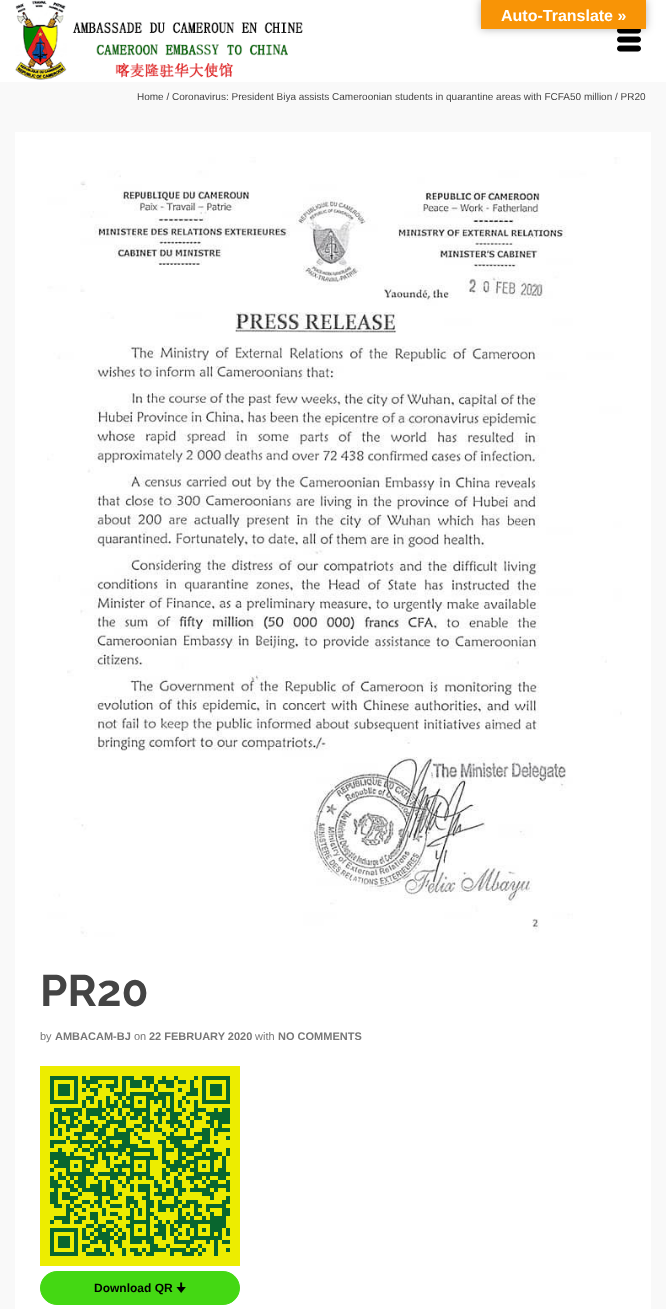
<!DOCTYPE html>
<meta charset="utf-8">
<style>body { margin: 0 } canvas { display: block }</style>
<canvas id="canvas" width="666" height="1309"></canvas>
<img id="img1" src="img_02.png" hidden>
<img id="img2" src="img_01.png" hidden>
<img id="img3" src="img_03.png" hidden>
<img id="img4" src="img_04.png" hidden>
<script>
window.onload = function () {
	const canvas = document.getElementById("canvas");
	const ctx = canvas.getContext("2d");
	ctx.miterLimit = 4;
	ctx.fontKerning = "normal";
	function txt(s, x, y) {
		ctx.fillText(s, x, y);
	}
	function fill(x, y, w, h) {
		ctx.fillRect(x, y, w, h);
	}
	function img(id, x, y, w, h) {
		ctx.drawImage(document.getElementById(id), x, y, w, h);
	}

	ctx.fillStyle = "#FFFFFF";
	fill(0, 0, 666, 1309);
	img("img1", 617, 29, 24, 23);
	ctx.fillStyle = "rgba(0, 0, 0, 0.3)";
	ctx.filter = "blur(4.5px)";
	ctx.beginPath();
	ctx.rect(481, 0, 165, 29);
	ctx.fill();
	ctx.filter = "none";
	ctx.fillStyle = "#F89406";
	fill(481, 0, 165, 29);
	img("img2", 15, 0, 288, 80);
	ctx.fillStyle = "#F9F9F9";
	fill(0, 82, 666, 1227);
	ctx.fillStyle = "#FFFFFF";
	fill(15, 132, 636, 1177);
	img("img3", 47, 157, 575, 780);
	img("img4", 40, 1066, 200, 200);
	ctx.fillStyle = "#44D813";
	ctx.beginPath();
	ctx.roundRect(40.5, 1271.5, 199, 33, 16.5);
	ctx.fill();
	ctx.strokeStyle = "#44D813";
	ctx.stroke();
	ctx.font = "bold 16px Liberation Sans";
	ctx.fillStyle = "#FFFFFF";
	txt("Auto-Translate »", 501, 21);
	ctx.font = "10px Liberation Sans";
	ctx.fillStyle = "#444444";
	txt("Home / Coronavirus: President Biya assists Cameroonian students in quarantine areas with FCFA50 million / PR20", 137, 100);
	ctx.font = "bold 44px Raleway";
	txt("PR20", 40, 1006);
	ctx.font = "11px Liberation Sans";
	ctx.fillStyle = "#777777";
	txt("by", 40, 1040);
	ctx.font = "bold 11px Liberation Sans";
	txt("AMBACAM-BJ", 55, 1040);
	ctx.font = "11px Liberation Sans";
	txt("on", 134, 1040);
	ctx.font = "bold 11px Liberation Sans";
	txt("22 FEBRUARY 2020", 149, 1040);
	ctx.font = "11px Liberation Sans";
	txt("with", 255, 1040);
	ctx.font = "bold 11px Liberation Sans";
	txt("NO COMMENTS", 278, 1040);
	ctx.font = "bold 12px Liberation Sans";
	ctx.fillStyle = "#000000";
	txt("Download QR", 94, 1292);
	ctx.font = "bold 12px 'Noto Sans Symbols 2'";
	txt("🠋", 176, 1292);
};
</script>
